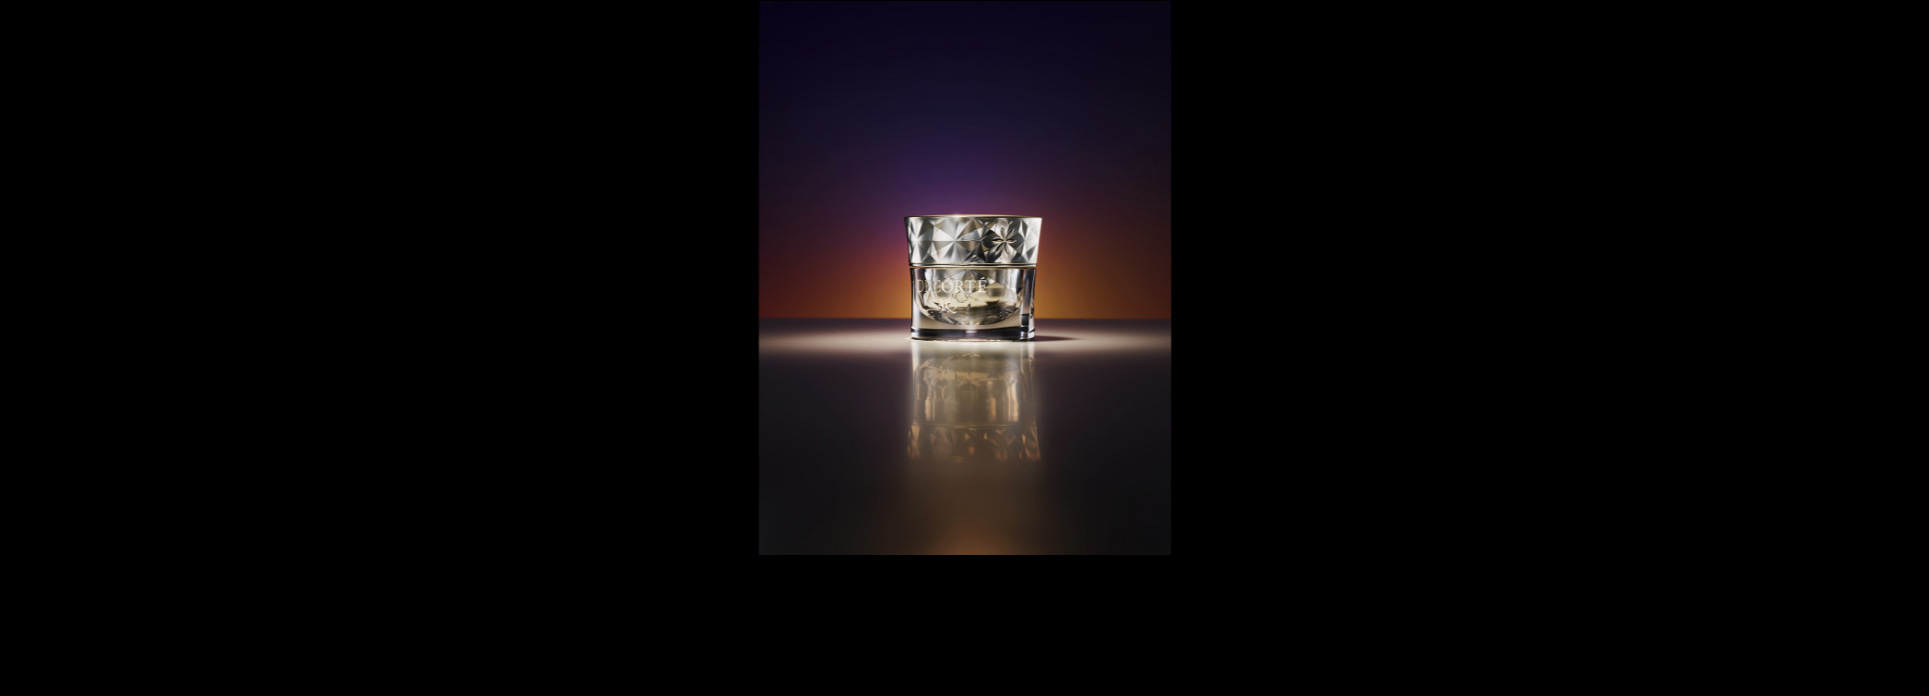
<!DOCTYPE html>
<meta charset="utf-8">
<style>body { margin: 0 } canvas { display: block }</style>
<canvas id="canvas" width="1929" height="696"></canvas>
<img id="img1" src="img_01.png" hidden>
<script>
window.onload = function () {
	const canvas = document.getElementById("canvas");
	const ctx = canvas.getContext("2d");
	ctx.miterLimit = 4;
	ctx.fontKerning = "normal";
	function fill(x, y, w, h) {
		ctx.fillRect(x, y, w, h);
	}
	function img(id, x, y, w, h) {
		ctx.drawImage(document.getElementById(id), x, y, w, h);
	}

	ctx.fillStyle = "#000000";
	fill(0, 0, 1929, 696);
	img("img1", 758, 1, 414, 554);
};
</script>
